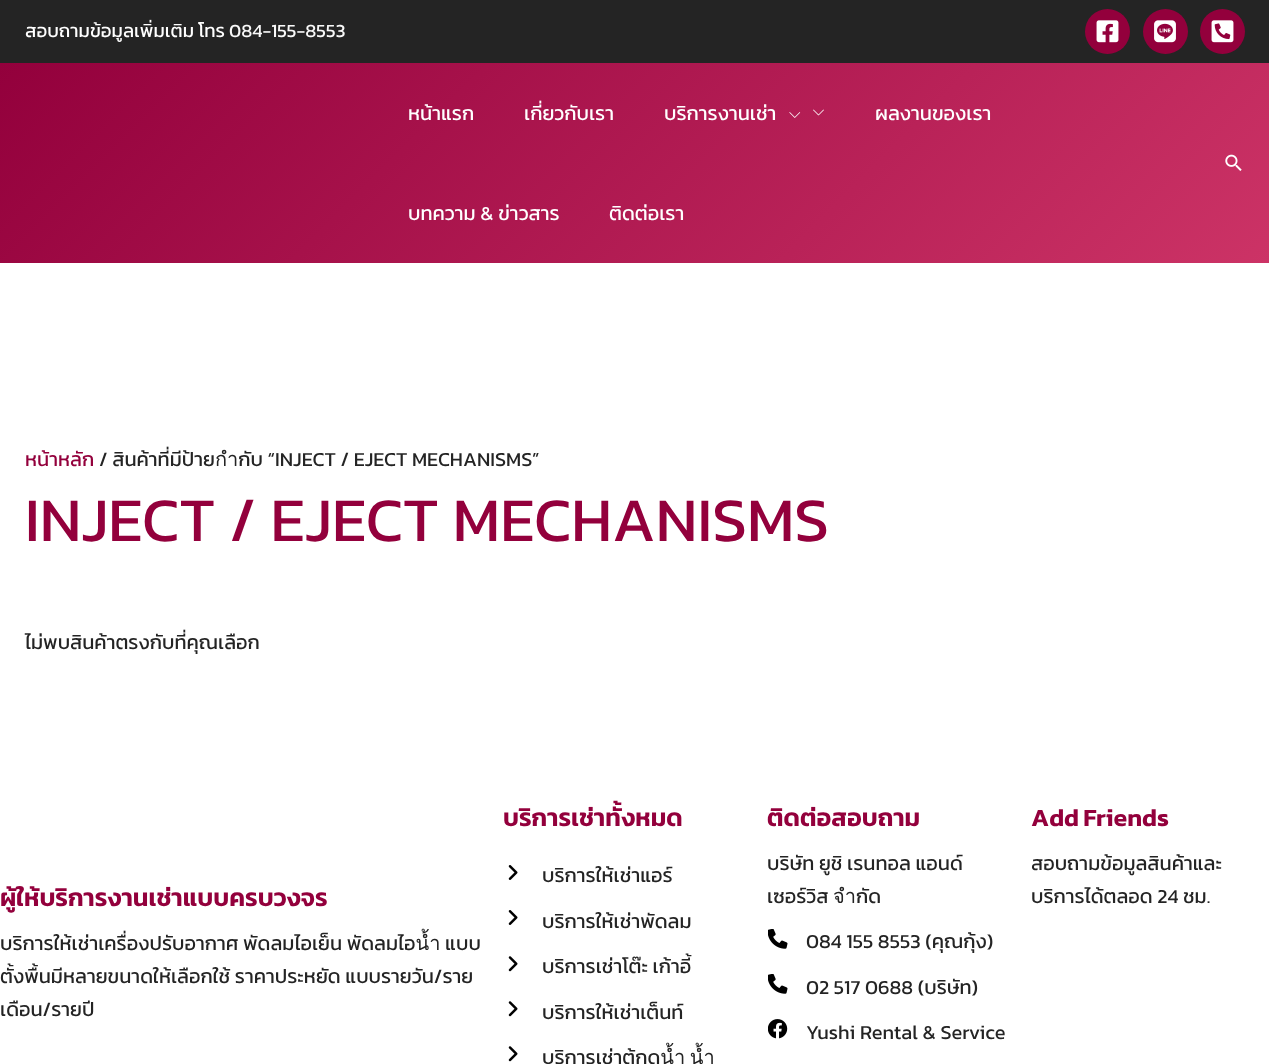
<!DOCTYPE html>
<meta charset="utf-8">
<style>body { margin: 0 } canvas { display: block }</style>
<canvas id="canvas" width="1269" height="1064"></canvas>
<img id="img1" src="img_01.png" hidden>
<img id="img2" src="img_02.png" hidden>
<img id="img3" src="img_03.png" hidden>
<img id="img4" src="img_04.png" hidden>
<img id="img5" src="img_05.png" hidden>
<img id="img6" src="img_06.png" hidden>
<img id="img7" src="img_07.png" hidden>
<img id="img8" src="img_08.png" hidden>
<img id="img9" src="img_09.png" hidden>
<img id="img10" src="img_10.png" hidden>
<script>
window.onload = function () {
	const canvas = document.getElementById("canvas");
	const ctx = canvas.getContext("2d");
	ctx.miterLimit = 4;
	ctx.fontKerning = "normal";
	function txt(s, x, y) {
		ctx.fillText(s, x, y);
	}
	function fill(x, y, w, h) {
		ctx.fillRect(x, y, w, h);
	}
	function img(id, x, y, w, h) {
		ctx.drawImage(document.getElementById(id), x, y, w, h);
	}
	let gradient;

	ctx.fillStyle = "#FFFFFF";
	fill(0, 0, 1269, 1064);
	ctx.fillStyle = "#242424";
	fill(0, 0, 1269, 63);
	ctx.fillStyle = "#93003C";
	ctx.beginPath();
	ctx.arc(1107.5, 31.5, 22.5, 0, Math.PI * 2);
	ctx.fill();
	img("img1", 1096, 20, 23, 23);
	ctx.beginPath();
	ctx.arc(1165.5, 31.5, 22.5, 0, Math.PI * 2);
	ctx.fill();
	img("img2", 1154, 20, 22, 23);
	ctx.beginPath();
	ctx.arc(1222.5, 31.5, 22.5, 0, Math.PI * 2);
	ctx.fill();
	img("img3", 1211, 20, 23, 23);
	gradient = ctx.createLinearGradient(268, -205, 1003, 530);
	gradient.addColorStop(0, "#93003C");
	gradient.addColorStop(1, "#CC3366");
	ctx.fillStyle = gradient;
	fill(0, 63, 1269, 200);
	img("img4", 789, 112, 12, 6);
	img("img5", 813, 109, 11, 7);
	img("img6", 1225, 154, 17, 17);
	img("img7", 508, 865, 10, 15);
	img("img7", 508, 910, 10, 15);
	img("img8", 508, 956, 10, 16);
	img("img8", 508, 1001, 10, 16);
	img("img8", 508, 1046, 10, 16);
	img("img9", 768, 929, 20, 20);
	img("img9", 768, 974, 20, 20);
	img("img10", 768, 1019, 20, 20);
	ctx.font = "18.75px Kanit";
	ctx.fillStyle = "#FFFFFF";
	txt("สอบถามข้อมูลเพิ่มเติม โทร", 25, 37);
	ctx.fillStyle = "#F9F9F9";
	txt("084-155-8553", 229, 37);
	ctx.font = "20px Kanit";
	ctx.fillStyle = "#FFFFFF";
	txt("หน้าแรก", 408, 120);
	txt("เกี่ยวกับเรา", 524, 120);
	txt("บริการงานเช่า", 664, 120);
	txt("ผลงานของเรา", 875, 120);
	txt("บทความ & ข่าวสาร", 408, 220);
	txt("ติดต่อเรา", 609, 220);
	ctx.fillStyle = "#93003C";
	txt("หน้าหลัก", 25, 466);
	ctx.fillStyle = "#242424";
	txt("/ สินค้าที่มีป้ายกำกับ “INJECT / EJECT MECHANISMS”", 99, 466);
	ctx.font = "62.5px Kanit";
	ctx.fillStyle = "#93003C";
	txt("INJECT / EJECT MECHANISMS", 25, 541);
	ctx.font = "20px Kanit";
	ctx.fillStyle = "#242424";
	txt("ไม่พบสินค้าตรงกับที่คุณเลือก", 25, 649);
	ctx.font = "600 25px Kanit";
	ctx.fillStyle = "#93003C";
	txt("บริการเช่าทั้งหมด", 503, 826);
	ctx.font = "20px Kanit";
	ctx.fillStyle = "#242424";
	txt("บริการให้เช่าแอร์", 542, 882);
	txt("บริการให้เช่าพัดลม", 542, 928);
	txt("บริการเช่าโต๊ะ เก้าอี้", 542, 973);
	txt("บริการให้เช่าเต็นท์", 542, 1019);
	txt("บริการเช่าตู้กดน้ำ น้ำ", 542, 1064);
	ctx.font = "600 25px Kanit";
	ctx.fillStyle = "#93003C";
	txt("ติดต่อสอบถาม", 767, 826);
	ctx.font = "20px Kanit";
	ctx.fillStyle = "#242424";
	txt("บริษัท ยูชิ เรนทอล แอนด์", 767, 870);
	txt("เซอร์วิส จำกัด", 767, 903);
	txt("084 155 8553 (คุณกุ้ง)", 806, 948);
	txt("02 517 0688 (บริษัท)", 806, 994);
	txt("Yushi Rental & Service", 806, 1039);
	ctx.wordSpacing = "-1px";
	ctx.font = "600 25px Kanit";
	ctx.fillStyle = "#93003C";
	txt("Add Friends", 1031, 826);
	ctx.wordSpacing = "0px";
	ctx.font = "20px Kanit";
	ctx.fillStyle = "#242424";
	txt("สอบถามข้อมูลสินค้าและ", 1031, 870);
	txt("บริการได้ตลอด 24 ชม.", 1031, 903);
	ctx.font = "600 25px Kanit";
	ctx.fillStyle = "#93003C";
	txt("ผู้ให้บริการงานเช่าแบบครบวงจร", 0, 906);
	ctx.font = "20px Kanit";
	ctx.fillStyle = "#242424";
	txt("บริการให้เช่าเครื่องปรับอากาศ พัดลมไอเย็น พัดลมไอน้ำ แบบ", 0, 950);
	txt("ตั้งพื้นมีหลายขนาดให้เลือกใช้ ราคาประหยัด แบบรายวัน/ราย", 0, 983);
	txt("เดือน/รายปี", 0, 1016);
};
</script>
